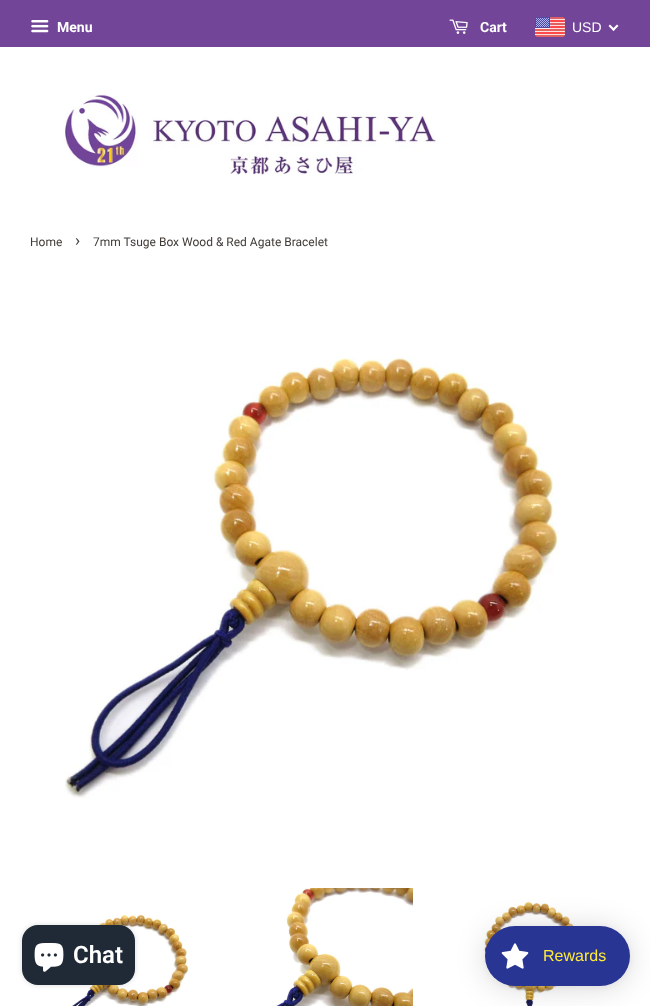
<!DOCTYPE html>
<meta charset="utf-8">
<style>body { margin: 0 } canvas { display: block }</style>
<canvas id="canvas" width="650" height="1006"></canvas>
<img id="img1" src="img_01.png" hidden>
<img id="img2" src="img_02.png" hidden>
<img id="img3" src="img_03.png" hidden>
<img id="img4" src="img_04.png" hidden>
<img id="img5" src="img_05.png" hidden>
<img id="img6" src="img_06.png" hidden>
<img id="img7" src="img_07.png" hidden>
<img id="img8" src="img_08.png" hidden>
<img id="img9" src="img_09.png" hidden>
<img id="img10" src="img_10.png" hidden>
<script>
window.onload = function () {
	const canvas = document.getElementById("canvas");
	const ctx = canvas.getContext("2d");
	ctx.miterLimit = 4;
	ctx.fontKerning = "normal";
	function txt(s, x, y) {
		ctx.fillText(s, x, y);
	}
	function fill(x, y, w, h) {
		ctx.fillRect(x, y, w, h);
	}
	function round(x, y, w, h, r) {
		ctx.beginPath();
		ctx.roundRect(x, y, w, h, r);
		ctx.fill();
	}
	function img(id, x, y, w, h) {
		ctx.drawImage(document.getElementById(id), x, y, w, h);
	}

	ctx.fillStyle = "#FFFFFF";
	fill(0, 0, 650, 1006);
	ctx.fillStyle = "#724598";
	fill(0, 0, 650, 47);
	img("img1", 31, 20, 18, 13);
	img("img2", 449, 19, 19, 15);
	img("img3", 535, 17, 30, 20);
	ctx.fillStyle = "#FFFFFF";
	ctx.beginPath();
	ctx.moveTo(617, 24.5);
	ctx.lineTo(618.5, 26);
	ctx.lineTo(613.5, 31);
	ctx.lineTo(612, 29.5);
	ctx.closePath();
	ctx.fill();
	ctx.beginPath();
	ctx.moveTo(610, 24.5);
	ctx.lineTo(615, 29.5);
	ctx.lineTo(613.5, 31);
	ctx.lineTo(608.5, 26);
	ctx.closePath();
	ctx.fill();
	img("img4", 63, 94, 373, 81);
	img("img5", 65, 357, 494, 441);
	img("img6", 72, 914, 117, 92);
	img("img7", 276, 888, 137, 118);
	img("img8", 484, 901, 98, 105);
	ctx.fillStyle = "rgba(0, 0, 0, 0.15)";
	ctx.filter = "blur(2.5px)";
	ctx.beginPath();
	ctx.roundRect(22, 925, 113, 60, 16);
	ctx.fill();
	ctx.filter = "none";
	ctx.fillStyle = "#202A36";
	round(22, 925, 113, 60, 16);
	img("img9", 34, 943, 30, 29);
	ctx.fillStyle = "rgba(0, 0, 0, 0.15)";
	ctx.filter = "blur(15px)";
	ctx.beginPath();
	ctx.roundRect(485, 928, 145, 60, 30);
	ctx.fill();
	ctx.filter = "none";
	ctx.fillStyle = "rgba(0, 0, 0, 0.05)";
	ctx.filter = "blur(3px)";
	ctx.beginPath();
	ctx.roundRect(485, 927, 145, 60, 30);
	ctx.fill();
	ctx.filter = "none";
	ctx.fillStyle = "#283593";
	round(485, 926, 145, 60, 30);
	img("img10", 501, 943, 28, 26);
	ctx.font = "bold 14px Roboto";
	ctx.fillStyle = "#FFFFFF";
	txt("Menu", 57, 32);
	txt("Cart", 480, 32);
	ctx.font = "14px Liberation Sans";
	txt("USD", 572, 32);
	ctx.font = "12px Roboto";
	ctx.fillStyle = "#403B37";
	txt("Home", 30, 246);
	ctx.font = "17px Roboto";
	txt("›", 75, 246);
	ctx.font = "12px Roboto";
	txt("7mm Tsuge Box Wood & Red Agate Bracelet", 93, 246);
	ctx.font = "600 24px Roboto";
	ctx.fillStyle = "#FFFFFF";
	txt("Chat", 73, 963);
	ctx.font = "16px Liberation Sans";
	ctx.fillStyle = "#FFEB3B";
	txt("Rewards", 543, 961);
};
</script>
